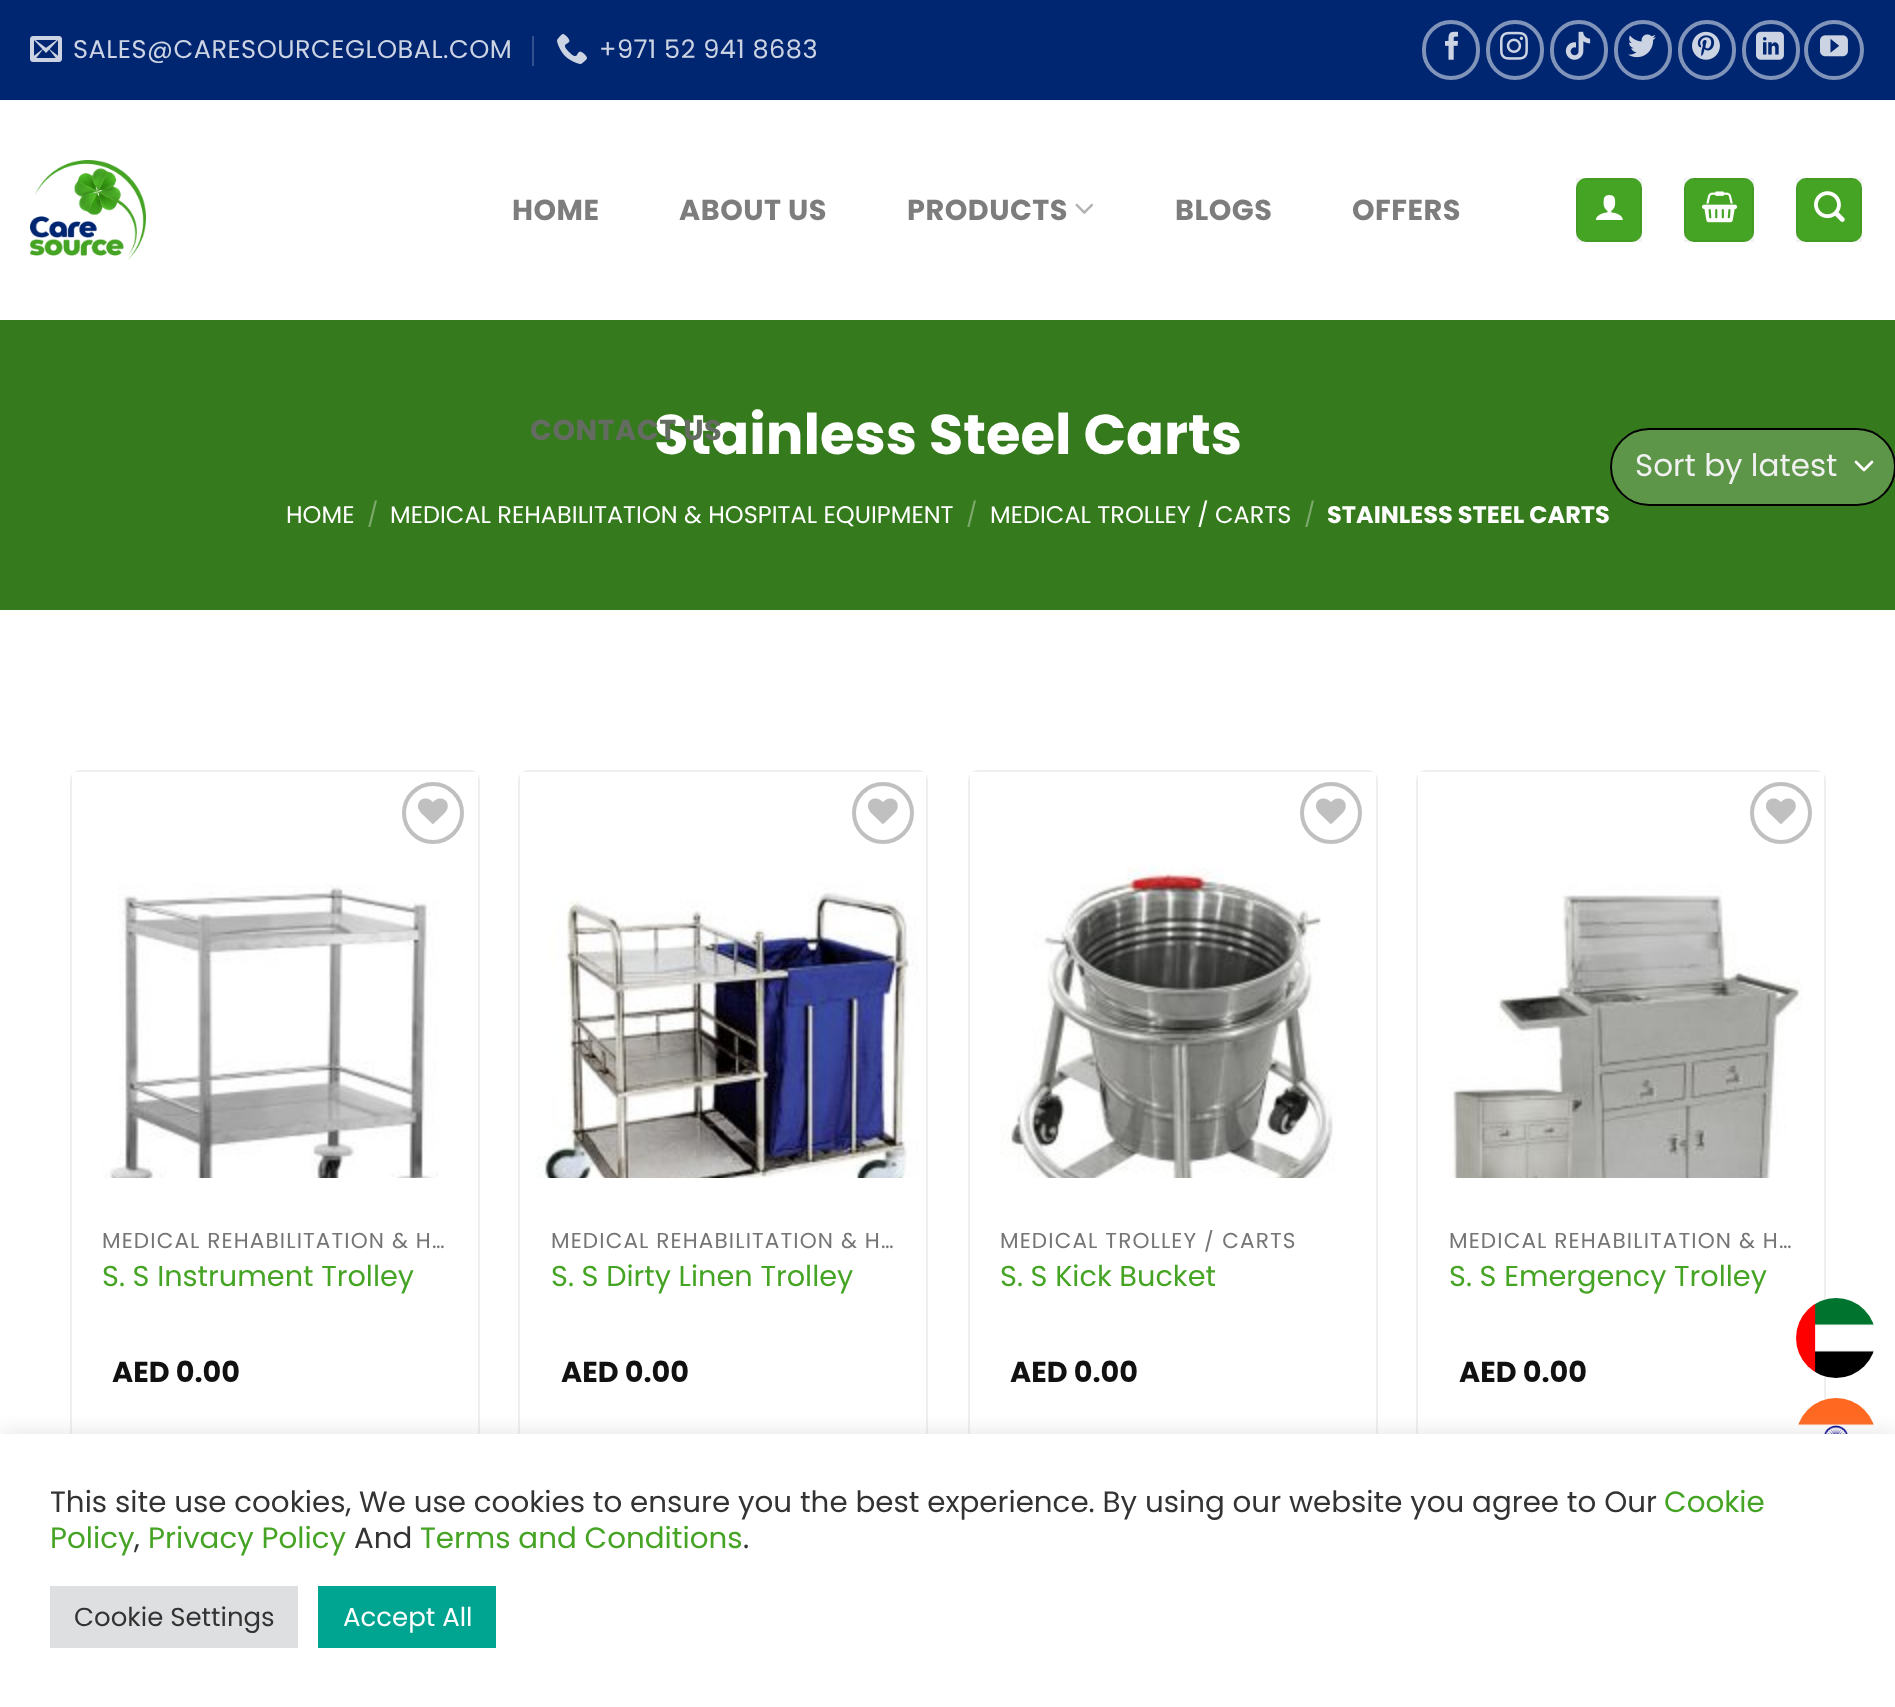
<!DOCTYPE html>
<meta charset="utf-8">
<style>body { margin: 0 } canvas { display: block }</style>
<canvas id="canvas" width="1895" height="1707"></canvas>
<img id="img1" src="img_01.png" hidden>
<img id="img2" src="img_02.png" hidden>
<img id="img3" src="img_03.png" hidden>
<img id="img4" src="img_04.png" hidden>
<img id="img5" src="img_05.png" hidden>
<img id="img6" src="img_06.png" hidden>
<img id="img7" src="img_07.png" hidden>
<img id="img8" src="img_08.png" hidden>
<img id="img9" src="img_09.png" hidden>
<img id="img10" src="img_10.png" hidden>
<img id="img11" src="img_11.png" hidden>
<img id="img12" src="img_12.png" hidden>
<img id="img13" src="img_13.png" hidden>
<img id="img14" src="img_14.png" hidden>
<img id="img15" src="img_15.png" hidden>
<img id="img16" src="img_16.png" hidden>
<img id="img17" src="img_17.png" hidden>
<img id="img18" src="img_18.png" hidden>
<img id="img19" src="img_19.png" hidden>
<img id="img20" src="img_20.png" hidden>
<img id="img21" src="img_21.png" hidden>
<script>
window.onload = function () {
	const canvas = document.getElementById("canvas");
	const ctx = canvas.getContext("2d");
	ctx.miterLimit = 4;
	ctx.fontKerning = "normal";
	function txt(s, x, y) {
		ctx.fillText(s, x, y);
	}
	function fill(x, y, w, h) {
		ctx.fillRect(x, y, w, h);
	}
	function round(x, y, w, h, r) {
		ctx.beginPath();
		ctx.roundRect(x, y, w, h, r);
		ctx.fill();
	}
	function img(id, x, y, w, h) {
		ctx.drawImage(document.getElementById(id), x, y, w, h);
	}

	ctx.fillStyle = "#FFFFFF";
	fill(0, 0, 1895, 1707);
	ctx.fillStyle = "#002672";
	fill(0, 0, 1895, 100);
	img("img1", 30, 36, 32, 26);
	ctx.fillStyle = "#33518E";
	fill(532, 36, 2, 30);
	img("img2", 557, 34, 30, 30);
	ctx.beginPath();
	ctx.roundRect(1424, 22, 54, 56, 27);
	ctx.strokeStyle = "#8093B9";
	ctx.lineWidth = 4;
	ctx.stroke();
	img("img3", 1445, 31, 13, 29);
	ctx.beginPath();
	ctx.roundRect(1488, 22, 54, 56, 27);
	ctx.stroke();
	img("img4", 1500, 31, 28, 29);
	ctx.beginPath();
	ctx.roundRect(1552, 22, 54, 56, 27);
	ctx.stroke();
	img("img5", 1565, 31, 26, 29);
	ctx.beginPath();
	ctx.roundRect(1616, 22, 54, 56, 27);
	ctx.stroke();
	img("img6", 1628, 34, 28, 24);
	ctx.beginPath();
	ctx.roundRect(1680, 22, 54, 56, 27);
	ctx.stroke();
	img("img7", 1692, 31, 28, 29);
	ctx.beginPath();
	ctx.roundRect(1744, 22, 54, 56, 27);
	ctx.stroke();
	img("img8", 1756, 31, 28, 29);
	ctx.beginPath();
	ctx.arc(1834, 50, 28, 0, Math.PI * 2);
	ctx.stroke();
	img("img9", 1820, 35, 28, 22);
	img("img10", 30, 160, 116, 100);
	img("img11", 1075, 203, 19, 11);
	ctx.fillStyle = "#46A425";
	round(1576, 178, 66, 64, 10);
	ctx.strokeStyle = "rgba(0, 0, 0, 0.05)";
	ctx.lineWidth = 2;
	ctx.strokeRect(1577, 179, 64, 62);
	img("img12", 1596, 195, 27, 25);
	round(1684, 178, 70, 64, 10);
	ctx.strokeRect(1685, 179, 68, 62);
	img("img13", 1702, 191, 36, 32);
	round(1796, 178, 66, 64, 10);
	ctx.strokeRect(1797, 179, 64, 62);
	img("img14", 1814, 191, 31, 31);
	ctx.fillStyle = "#357A1C";
	fill(0, 320, 1895, 290);
	ctx.fillStyle = "#5D9549";
	round(1610, 428, 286, 78, 39);
	ctx.beginPath();
	ctx.moveTo(1856, 462);
	ctx.lineTo(1864, 470);
	ctx.lineTo(1872, 462);
	ctx.strokeStyle = "#FFFFFF";
	ctx.lineWidth = 2.7;
	ctx.lineCap = "round";
	ctx.lineJoin = "round";
	ctx.stroke();
	ctx.beginPath();
	ctx.roundRect(1611, 429, 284, 76, 38);
	ctx.strokeStyle = "#000000";
	ctx.lineWidth = 2;
	ctx.lineJoin = "miter";
	ctx.stroke();
	ctx.beginPath();
	ctx.roundRect(71, 771, 408, 898, 9);
	ctx.strokeStyle = "#EFEFEF";
	ctx.stroke();
	img("img15", 72, 772, 406, 406);
	ctx.beginPath();
	ctx.arc(433, 813, 29, 0, Math.PI * 2);
	ctx.strokeStyle = "#C0C0C0";
	ctx.lineWidth = 4;
	ctx.stroke();
	img("img16", 418, 798, 30, 26);
	ctx.beginPath();
	ctx.roundRect(519, 771, 408, 898, 9);
	ctx.strokeStyle = "#EFEFEF";
	ctx.lineWidth = 2;
	ctx.stroke();
	img("img17", 520, 772, 406, 406);
	ctx.beginPath();
	ctx.arc(883, 813, 29, 0, Math.PI * 2);
	ctx.strokeStyle = "#C0C0C0";
	ctx.lineWidth = 4;
	ctx.stroke();
	img("img16", 868, 798, 30, 26);
	ctx.beginPath();
	ctx.roundRect(969, 771, 408, 898, 9);
	ctx.strokeStyle = "#EFEFEF";
	ctx.lineWidth = 2;
	ctx.stroke();
	img("img18", 970, 772, 406, 406);
	ctx.beginPath();
	ctx.arc(1331, 813, 29, 0, Math.PI * 2);
	ctx.strokeStyle = "#C0C0C0";
	ctx.lineWidth = 4;
	ctx.stroke();
	img("img16", 1316, 798, 30, 26);
	ctx.beginPath();
	ctx.roundRect(1417, 771, 408, 898, 9);
	ctx.strokeStyle = "#EFEFEF";
	ctx.lineWidth = 2;
	ctx.stroke();
	img("img19", 1418, 772, 406, 406);
	ctx.beginPath();
	ctx.arc(1781, 813, 29, 0, Math.PI * 2);
	ctx.strokeStyle = "#C0C0C0";
	ctx.lineWidth = 4;
	ctx.stroke();
	img("img16", 1766, 798, 30, 26);
	img("img20", 1796, 1298, 78, 80);
	img("img21", 1798, 1398, 76, 36);
	ctx.fillStyle = "rgba(172, 171, 171, 0.3)";
	ctx.filter = "blur(10px)";
	ctx.beginPath();
	ctx.rect(0, 1432, 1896, 274);
	ctx.fill();
	ctx.filter = "none";
	ctx.fillStyle = "#FFFFFF";
	fill(0, 1434, 1895, 273);
	ctx.fillStyle = "#DEDFE0";
	fill(50, 1586, 248, 62);
	ctx.fillStyle = "#00A591";
	fill(318, 1586, 178, 62);
	ctx.letterSpacing = "0.5px";
	ctx.font = "25.6px Poppins";
	ctx.fillStyle = "#CCD4E3";
	txt("SALES@CARESOURCEGLOBAL.COM", 73, 58);
	txt("+971 52 941 8683", 599, 58);
	ctx.font = "bold 28.75px Poppins";
	ctx.fillStyle = "#7D7D7D";
	txt("HOME", 512, 220);
	txt("ABOUT US", 679, 220);
	txt("PRODUCTS", 907, 220);
	txt("BLOGS", 1175, 220);
	txt("OFFERS", 1352, 220);
	ctx.letterSpacing = "0px";
	ctx.font = "bold 56px Poppins";
	ctx.fillStyle = "#FFFFFF";
	txt("Stainless Steel Carts", 654, 454);
	ctx.letterSpacing = "0.5px";
	ctx.font = "bold 28.75px Poppins";
	ctx.fillStyle = "#646C61";
	txt("CONTACT US", 530, 440);
	ctx.letterSpacing = "0px";
	ctx.font = "24px Poppins";
	ctx.fillStyle = "#FFFFFF";
	txt("HOME", 286, 523);
	ctx.fillStyle = "#7CA96B";
	txt("/", 367, 523);
	ctx.fillStyle = "#FFFFFF";
	txt("MEDICAL REHABILITATION & HOSPITAL EQUIPMENT", 390, 523);
	ctx.fillStyle = "#7CA96B";
	txt("/", 966, 523);
	ctx.fillStyle = "#FFFFFF";
	txt("MEDICAL TROLLEY / CARTS", 990, 523);
	ctx.fillStyle = "#7CA96B";
	txt("/", 1304, 523);
	ctx.font = "bold 24px Poppins";
	ctx.fillStyle = "#FFFFFF";
	txt("STAINLESS STEEL CARTS", 1327, 523);
	ctx.font = "31px Poppins";
	ctx.fillStyle = "#F1F1F1";
	txt("Sort by latest", 1635, 476);
	ctx.letterSpacing = "1.1px";
	ctx.font = "21.6px Poppins";
	ctx.fillStyle = "#757575";
	txt("MEDICAL REHABILITATION & H…", 102, 1248);
	ctx.letterSpacing = "0px";
	ctx.font = "28.75px Poppins";
	ctx.fillStyle = "#46A425";
	txt("S. S Instrument Trolley", 102, 1286);
	ctx.font = "bold 28.75px Poppins";
	ctx.fillStyle = "#111111";
	txt("AED 0.00", 112, 1382);
	ctx.letterSpacing = "1.1px";
	ctx.font = "21.6px Poppins";
	ctx.fillStyle = "#757575";
	txt("MEDICAL REHABILITATION & H…", 551, 1248);
	ctx.letterSpacing = "0px";
	ctx.font = "28.75px Poppins";
	ctx.fillStyle = "#46A425";
	txt("S. S Dirty Linen Trolley", 551, 1286);
	ctx.font = "bold 28.75px Poppins";
	ctx.fillStyle = "#111111";
	txt("AED 0.00", 561, 1382);
	ctx.save();
	ctx.beginPath();
	ctx.rect(1000, 1230, 346, 26);
	ctx.clip();
	ctx.letterSpacing = "1.1px";
	ctx.font = "21.6px Poppins";
	ctx.fillStyle = "#757575";
	txt("MEDICAL TROLLEY / CARTS", 1000, 1248);
	ctx.restore();
	ctx.font = "28.75px Poppins";
	ctx.fillStyle = "#46A425";
	txt("S. S Kick Bucket", 1000, 1286);
	ctx.font = "bold 28.75px Poppins";
	ctx.fillStyle = "#111111";
	txt("AED 0.00", 1010, 1382);
	ctx.letterSpacing = "1.1px";
	ctx.font = "21.6px Poppins";
	ctx.fillStyle = "#757575";
	txt("MEDICAL REHABILITATION & H…", 1449, 1248);
	ctx.letterSpacing = "0px";
	ctx.font = "28.75px Poppins";
	ctx.fillStyle = "#46A425";
	txt("S. S Emergency Trolley", 1449, 1286);
	ctx.font = "bold 28.75px Poppins";
	ctx.fillStyle = "#111111";
	txt("AED 0.00", 1459, 1382);
	ctx.font = "29.33px Poppins";
	ctx.fillStyle = "#333333";
	txt("This site use cookies, We use cookies to ensure you the best experience. By using our website you agree to Our", 50, 1512);
	ctx.fillStyle = "#46A425";
	txt("Cookie", 1664, 1512);
	txt("Policy", 50, 1548);
	ctx.fillStyle = "#333333";
	txt(",", 134, 1548);
	ctx.fillStyle = "#46A425";
	txt("Privacy Policy", 148, 1548);
	ctx.fillStyle = "#333333";
	txt("And", 354, 1548);
	ctx.fillStyle = "#46A425";
	txt("Terms and Conditions", 420, 1548);
	ctx.fillStyle = "#333333";
	txt(".", 743, 1548);
	ctx.font = "26px Poppins";
	txt("Cookie Settings", 74, 1626);
	ctx.fillStyle = "#FFFFFF";
	txt("Accept All", 343, 1626);
};
</script>
